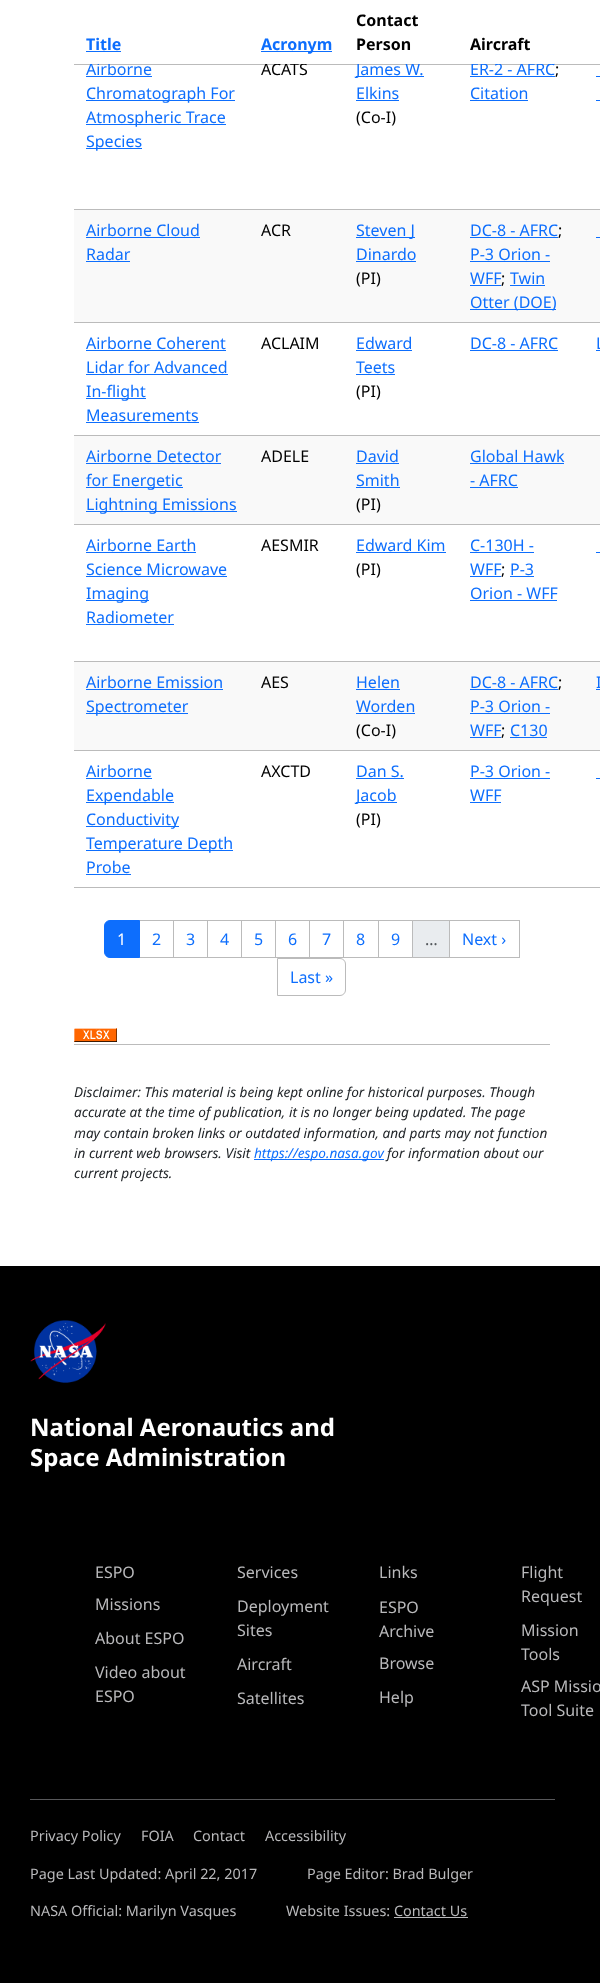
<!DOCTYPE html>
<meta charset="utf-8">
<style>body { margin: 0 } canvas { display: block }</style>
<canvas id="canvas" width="600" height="1983"></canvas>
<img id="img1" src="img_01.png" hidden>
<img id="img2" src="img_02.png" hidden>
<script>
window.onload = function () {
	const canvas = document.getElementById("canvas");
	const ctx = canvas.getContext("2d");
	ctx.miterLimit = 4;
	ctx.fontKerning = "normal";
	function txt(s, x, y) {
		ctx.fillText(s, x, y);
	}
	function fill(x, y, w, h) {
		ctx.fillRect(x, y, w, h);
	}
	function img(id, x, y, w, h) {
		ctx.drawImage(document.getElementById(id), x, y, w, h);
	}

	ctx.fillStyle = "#FFFFFF";
	fill(0, 0, 600, 1983);
	ctx.fillStyle = "#0D6EFD";
	fill(86, 51, 35, 1);
	fill(261, 51, 71, 1);
	ctx.fillStyle = "#BBBBBB";
	fill(74, 64, 526, 1);
	ctx.fillStyle = "#0D6EFD";
	fill(86, 76, 66, 1);
	fill(86, 100, 149, 1);
	fill(86, 124, 140, 1);
	fill(86, 148, 56, 1);
	fill(356, 76, 68, 1);
	fill(356, 100, 43, 1);
	fill(470, 76, 85, 1);
	fill(470, 100, 58, 1);
	ctx.fillStyle = "#BBBBBB";
	fill(74, 209, 526, 1);
	ctx.fillStyle = "#0D6EFD";
	fill(596, 76, 4, 1);
	fill(596, 100, 4, 1);
	ctx.fillStyle = "#F9F9F9";
	fill(74, 210, 526, 112);
	ctx.fillStyle = "#0D6EFD";
	fill(86, 237, 114, 1);
	fill(86, 261, 44, 1);
	fill(356, 237, 59, 1);
	fill(356, 261, 60, 1);
	fill(470, 237, 88, 1);
	fill(470, 261, 80, 1);
	fill(470, 285, 31, 1);
	fill(510, 285, 35, 1);
	fill(470, 309, 86, 1);
	ctx.fillStyle = "#BBBBBB";
	fill(74, 322, 526, 1);
	ctx.fillStyle = "#0D6EFD";
	fill(596, 237, 4, 1);
	fill(86, 350, 140, 1);
	fill(86, 374, 142, 1);
	fill(86, 398, 60, 1);
	fill(86, 422, 113, 1);
	fill(356, 350, 56, 1);
	fill(356, 374, 39, 1);
	fill(470, 350, 88, 1);
	ctx.fillStyle = "#BBBBBB";
	fill(74, 435, 526, 1);
	ctx.fillStyle = "#0D6EFD";
	fill(596, 350, 4, 1);
	ctx.fillStyle = "#F9F9F9";
	fill(74, 436, 526, 88);
	ctx.fillStyle = "#0D6EFD";
	fill(86, 463, 135, 1);
	fill(86, 487, 97, 1);
	fill(86, 511, 151, 1);
	fill(356, 463, 43, 1);
	fill(356, 487, 44, 1);
	fill(470, 463, 94, 1);
	fill(470, 487, 48, 1);
	ctx.fillStyle = "#BBBBBB";
	fill(74, 524, 526, 1);
	ctx.fillStyle = "#0D6EFD";
	fill(86, 552, 110, 1);
	fill(86, 576, 141, 1);
	fill(86, 600, 63, 1);
	fill(86, 624, 88, 1);
	fill(356, 552, 90, 1);
	fill(470, 552, 64, 1);
	fill(470, 576, 31, 1);
	fill(510, 576, 24, 1);
	fill(470, 600, 87, 1);
	ctx.fillStyle = "#BBBBBB";
	fill(74, 661, 526, 1);
	ctx.fillStyle = "#0D6EFD";
	fill(596, 552, 4, 1);
	ctx.fillStyle = "#F9F9F9";
	fill(74, 662, 526, 88);
	ctx.fillStyle = "#0D6EFD";
	fill(86, 689, 137, 1);
	fill(86, 713, 102, 1);
	fill(356, 689, 44, 1);
	fill(356, 713, 59, 1);
	fill(470, 689, 88, 1);
	fill(470, 713, 80, 1);
	fill(470, 737, 31, 1);
	fill(510, 737, 37, 1);
	ctx.fillStyle = "#BBBBBB";
	fill(74, 750, 526, 1);
	ctx.fillStyle = "#0D6EFD";
	fill(596, 689, 4, 1);
	fill(86, 778, 66, 1);
	fill(86, 802, 88, 1);
	fill(86, 826, 93, 1);
	fill(86, 850, 147, 1);
	fill(86, 874, 45, 1);
	fill(356, 778, 48, 1);
	fill(356, 802, 41, 1);
	fill(470, 778, 80, 1);
	fill(470, 802, 31, 1);
	ctx.fillStyle = "#BBBBBB";
	fill(74, 887, 526, 1);
	ctx.fillStyle = "#0D6EFD";
	fill(596, 778, 4, 1);
	ctx.strokeStyle = "#BBBBBB";
	ctx.strokeRect(139.5, 920.5, 34, 37);
	ctx.beginPath();
	ctx.roundRect(104.5, 920.5, 35, 37, [5.5, 0, 0, 5.5]);
	ctx.fill();
	ctx.strokeStyle = "#0D6EFD";
	ctx.stroke();
	ctx.strokeStyle = "#BBBBBB";
	ctx.strokeRect(173.5, 920.5, 34, 37);
	ctx.strokeRect(207.5, 920.5, 34, 37);
	ctx.strokeRect(241.5, 920.5, 34, 37);
	ctx.strokeRect(275.5, 920.5, 34, 37);
	ctx.strokeRect(309.5, 920.5, 34, 37);
	ctx.strokeRect(343.5, 920.5, 35, 37);
	ctx.strokeRect(378.5, 920.5, 34, 37);
	ctx.fillStyle = "#E9ECEF";
	ctx.beginPath();
	ctx.rect(412.5, 920.5, 37, 37);
	ctx.fill();
	ctx.stroke();
	ctx.strokeRect(449.5, 920.5, 70, 37);
	ctx.beginPath();
	ctx.roundRect(277.5, 958.5, 68, 37, [0, 5.5, 5.5, 0]);
	ctx.stroke();
	img("img1", 74, 1028, 43, 14);
	ctx.fillStyle = "#BBBBBB";
	fill(74, 1044, 476, 1);
	ctx.fillStyle = "#0D6EFD";
	fill(254, 1159, 130, 1);
	ctx.fillStyle = "#000000";
	fill(0, 1266, 600, 717);
	img("img2", 30, 1320, 76, 63);
	ctx.fillStyle = "#58585B";
	fill(30, 1799, 525, 1);
	ctx.fillStyle = "#B9B9BB";
	fill(394, 1917, 74, 1);
	ctx.font = "bold 16px Noto Sans";
	ctx.fillStyle = "#0D6EFD";
	txt("Title", 86, 50);
	txt("Acronym", 261, 50);
	ctx.fillStyle = "#000000";
	txt("Contact", 356, 26);
	txt("Person", 356, 50);
	txt("Aircraft", 470, 50);
	ctx.font = "16px Noto Sans";
	ctx.fillStyle = "#0D6EFD";
	txt("Airborne", 86, 75);
	ctx.fillStyle = "#FFFFFF";
	fill(90, 62, 20, 2);
	ctx.fillStyle = "#0D6EFD";
	txt("Chromatograph For", 86, 99);
	txt("Atmospheric Trace", 86, 123);
	txt("Species", 86, 147);
	ctx.fillStyle = "#000000";
	txt("ACATS", 261, 75);
	ctx.fillStyle = "#FFFFFF";
	fill(265, 63, 42, 1);
	ctx.fillStyle = "#0D6EFD";
	txt("James W.", 356, 75);
	ctx.fillStyle = "#FFFFFF";
	fill(357, 63, 63, 1);
	ctx.fillStyle = "#0D6EFD";
	txt("Elkins", 356, 99);
	ctx.fillStyle = "#000000";
	txt("(Co-I)", 356, 123);
	ctx.fillStyle = "#0D6EFD";
	txt("ER-2 - AFRC", 470, 75);
	ctx.fillStyle = "#FFFFFF";
	fill(471, 63, 83, 1);
	ctx.fillStyle = "#000000";
	txt(";", 555, 75);
	ctx.fillStyle = "#0D6EFD";
	txt("Citation", 470, 99);
	txt("Airborne Cloud", 86, 236);
	txt("Radar", 86, 260);
	ctx.fillStyle = "#000000";
	txt("ACR", 261, 236);
	ctx.fillStyle = "#0D6EFD";
	txt("Steven J", 356, 236);
	txt("Dinardo", 356, 260);
	ctx.fillStyle = "#000000";
	txt("(PI)", 356, 284);
	ctx.fillStyle = "#0D6EFD";
	txt("DC-8 - AFRC", 470, 236);
	ctx.fillStyle = "#000000";
	txt(";", 558, 236);
	ctx.fillStyle = "#0D6EFD";
	txt("P-3 Orion -", 470, 260);
	txt("WFF", 470, 284);
	ctx.fillStyle = "#000000";
	txt(";", 501, 284);
	ctx.fillStyle = "#0D6EFD";
	txt("Twin", 510, 284);
	txt("Otter (DOE)", 470, 308);
	txt("Airborne Coherent", 86, 349);
	txt("Lidar for Advanced", 86, 373);
	txt("In-flight", 86, 397);
	txt("Measurements", 86, 421);
	ctx.fillStyle = "#000000";
	txt("ACLAIM", 261, 349);
	ctx.fillStyle = "#0D6EFD";
	txt("Edward", 356, 349);
	txt("Teets", 356, 373);
	ctx.fillStyle = "#000000";
	txt("(PI)", 356, 397);
	ctx.fillStyle = "#0D6EFD";
	txt("DC-8 - AFRC", 470, 349);
	txt("L", 596, 349);
	txt("Airborne Detector", 86, 462);
	txt("for Energetic", 86, 486);
	txt("Lightning Emissions", 86, 510);
	ctx.fillStyle = "#000000";
	txt("ADELE", 261, 462);
	ctx.fillStyle = "#0D6EFD";
	txt("David", 356, 462);
	txt("Smith", 356, 486);
	ctx.fillStyle = "#000000";
	txt("(PI)", 356, 510);
	ctx.fillStyle = "#0D6EFD";
	txt("Global Hawk", 470, 462);
	txt("- AFRC", 470, 486);
	txt("Airborne Earth", 86, 551);
	txt("Science Microwave", 86, 575);
	txt("Imaging", 86, 599);
	txt("Radiometer", 86, 623);
	ctx.fillStyle = "#000000";
	txt("AESMIR", 261, 551);
	ctx.fillStyle = "#0D6EFD";
	txt("Edward Kim", 356, 551);
	ctx.fillStyle = "#000000";
	txt("(PI)", 356, 575);
	ctx.fillStyle = "#0D6EFD";
	txt("C-130H -", 470, 551);
	txt("WFF", 470, 575);
	ctx.fillStyle = "#000000";
	txt(";", 501, 575);
	ctx.fillStyle = "#0D6EFD";
	txt("P-3", 510, 575);
	txt("Orion - WFF", 470, 599);
	txt("Airborne Emission", 86, 688);
	txt("Spectrometer", 86, 712);
	ctx.fillStyle = "#000000";
	txt("AES", 261, 688);
	ctx.fillStyle = "#0D6EFD";
	txt("Helen", 356, 688);
	txt("Worden", 356, 712);
	ctx.fillStyle = "#000000";
	txt("(Co-I)", 356, 736);
	ctx.fillStyle = "#0D6EFD";
	txt("DC-8 - AFRC", 470, 688);
	ctx.fillStyle = "#000000";
	txt(";", 558, 688);
	ctx.fillStyle = "#0D6EFD";
	txt("P-3 Orion -", 470, 712);
	txt("WFF", 470, 736);
	ctx.fillStyle = "#000000";
	txt(";", 501, 736);
	ctx.fillStyle = "#0D6EFD";
	txt("C130", 510, 736);
	txt("I", 596, 688);
	txt("Airborne", 86, 777);
	txt("Expendable", 86, 801);
	txt("Conductivity", 86, 825);
	txt("Temperature Depth", 86, 849);
	txt("Probe", 86, 873);
	ctx.fillStyle = "#000000";
	txt("AXCTD", 261, 777);
	ctx.fillStyle = "#0D6EFD";
	txt("Dan S.", 356, 777);
	txt("Jacob", 356, 801);
	ctx.fillStyle = "#000000";
	txt("(PI)", 356, 825);
	ctx.fillStyle = "#0D6EFD";
	txt("P-3 Orion -", 470, 777);
	txt("WFF", 470, 801);
	ctx.fillStyle = "#FFFFFF";
	txt("1", 117, 945);
	ctx.fillStyle = "#0D6EFD";
	txt("2", 152, 945);
	txt("3", 186, 945);
	txt("4", 220, 945);
	txt("5", 254, 945);
	txt("6", 288, 945);
	txt("7", 322, 945);
	txt("8", 356, 945);
	txt("9", 391, 945);
	ctx.fillStyle = "#53575B";
	txt("…", 425, 945);
	ctx.fillStyle = "#0D6EFD";
	txt("Next ›", 462, 945);
	txt("Last »", 290, 983);
	ctx.font = "italic 13.6px Noto Sans";
	ctx.fillStyle = "#212529";
	txt("Disclaimer: This material is being kept online for historical purposes. Though", 74, 1097);
	txt("accurate at the time of publication, it is no longer being updated. The page", 74, 1117);
	txt("may contain broken links or outdated information, and parts may not function", 74, 1138);
	txt("in current web browsers. Visit", 74, 1158);
	ctx.fillStyle = "#0D6EFD";
	txt("https://espo.nasa.gov", 254, 1158);
	ctx.fillStyle = "#212529";
	txt("for information about our", 387, 1158);
	txt("current projects.", 74, 1178);
	ctx.font = "bold 24px Noto Sans";
	ctx.fillStyle = "#FFFFFF";
	txt("National Aeronautics and", 30, 1436);
	txt("Space Administration", 30, 1466);
	ctx.font = "16px Noto Sans";
	ctx.fillStyle = "#B9B9BB";
	txt("Services", 237, 1578);
	txt("Links", 379, 1578);
	txt("Missions", 95, 1610);
	txt("Deployment", 237, 1612);
	txt("Sites", 237, 1636);
	txt("About ESPO", 95, 1644);
	txt("Video about", 95, 1678);
	txt("ESPO", 95, 1702);
	txt("Aircraft", 237, 1670);
	txt("Satellites", 237, 1704);
	txt("ESPO", 95, 1578);
	txt("Flight", 521, 1578);
	txt("Request", 521, 1602);
	txt("ESPO", 379, 1613);
	txt("Archive", 379, 1637);
	txt("Browse", 379, 1669);
	txt("Help", 379, 1703);
	txt("Mission", 521, 1636);
	txt("Tools", 521, 1660);
	txt("ASP Missio", 521, 1692);
	txt("Tool Suite", 521, 1716);
	ctx.font = "14.4px Noto Sans";
	txt("Privacy Policy", 30, 1841);
	txt("FOIA", 141, 1841);
	txt("Contact", 193, 1841);
	txt("Accessibility", 265, 1841);
	txt("Page Last Updated: April 22, 2017", 30, 1879);
	txt("Page Editor: Brad Bulger", 307, 1879);
	txt("NASA Official: Marilyn Vasques", 30, 1916);
	txt("Website Issues: Contact Us", 286, 1916);
};
</script>
